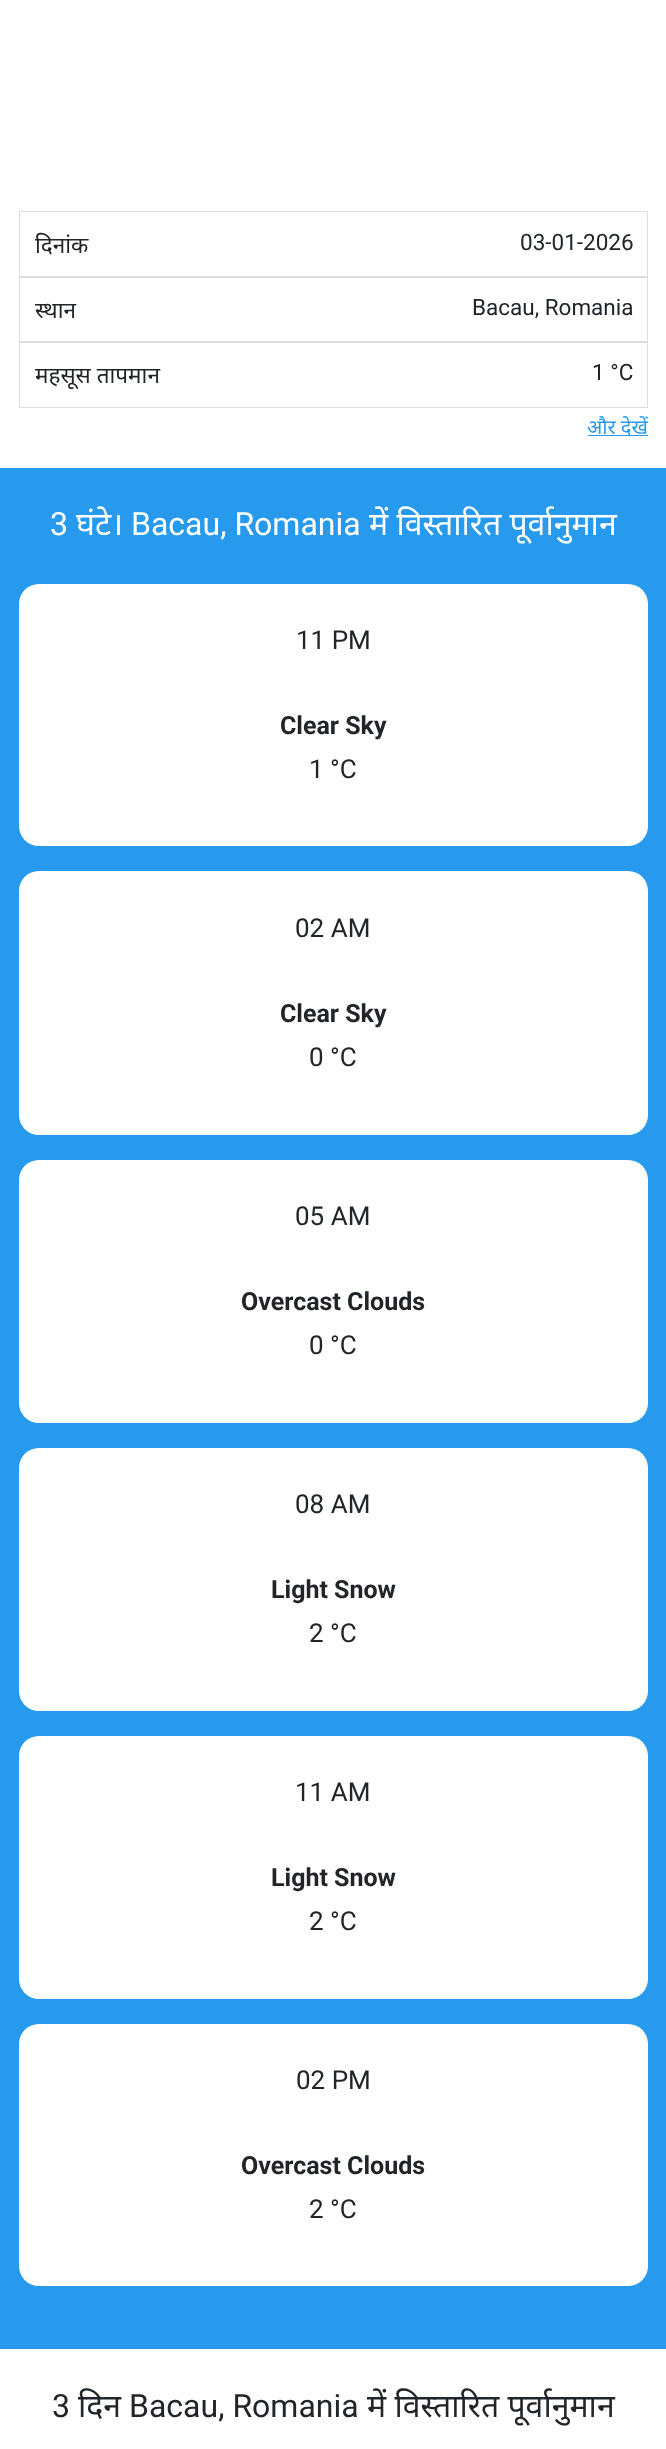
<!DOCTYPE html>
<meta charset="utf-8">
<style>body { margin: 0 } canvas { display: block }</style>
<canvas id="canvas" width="666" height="2449"></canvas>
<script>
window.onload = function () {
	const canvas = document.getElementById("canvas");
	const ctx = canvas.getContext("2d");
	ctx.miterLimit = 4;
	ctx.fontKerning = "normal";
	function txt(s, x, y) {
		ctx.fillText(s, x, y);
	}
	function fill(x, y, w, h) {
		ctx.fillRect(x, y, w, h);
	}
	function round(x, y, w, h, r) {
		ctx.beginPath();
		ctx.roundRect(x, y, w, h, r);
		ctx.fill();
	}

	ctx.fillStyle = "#FFFFFF";
	fill(0, 0, 666, 2449);
	ctx.strokeStyle = "#DDDDDD";
	ctx.strokeRect(19.5, 211.5, 628, 66);
	ctx.strokeRect(19.5, 276.5, 628, 66);
	ctx.strokeRect(19.5, 341.5, 628, 66);
	ctx.fillStyle = "#279AED";
	fill(588, 435, 60, 1);
	fill(0, 468, 666, 1881);
	ctx.fillStyle = "#FFFFFF";
	round(19, 584, 629, 262, 20);
	round(19, 871, 629, 264, 20);
	round(19, 1160, 629, 263, 20);
	round(19, 1448, 629, 263, 20);
	round(19, 1736, 629, 263, 20);
	round(19, 2024, 629, 262, 20);
	ctx.font = "22.5px Noto Sans";
	ctx.fillStyle = "#212529";
	txt("दिनांक", 35, 253);
	ctx.font = "22.5px Roboto";
	txt("03-01-2026", 520, 250);
	ctx.font = "22.5px Noto Sans";
	txt("स्थान", 35, 318);
	ctx.font = "22.5px Roboto";
	txt("Bacau, Romania", 472, 315);
	ctx.font = "22.5px Noto Sans";
	txt("महसूस तापमान", 35, 383);
	ctx.font = "22.5px Roboto";
	txt("1 °C", 592, 380);
	ctx.font = "20px Noto Sans";
	ctx.fillStyle = "#279AED";
	txt("और देखें", 587, 434);
	ctx.font = "32px Roboto";
	ctx.fillStyle = "#FFFFFF";
	txt("3", 50, 535);
	ctx.font = "32px Noto Sans";
	txt("घंटे।", 76, 535);
	ctx.font = "32px Roboto";
	txt("Bacau, Romania", 131, 535);
	ctx.font = "32px Noto Sans";
	txt("में विस्तारित पूर्वानुमान", 369, 535);
	ctx.font = "26px Roboto";
	ctx.fillStyle = "#212529";
	txt("11 PM", 296, 649);
	ctx.font = "bold 25px Roboto";
	txt("Clear Sky", 280, 734);
	ctx.font = "26px Roboto";
	txt("1 °C", 309, 778);
	txt("02 AM", 295, 937);
	ctx.font = "bold 25px Roboto";
	txt("Clear Sky", 280, 1022);
	ctx.font = "26px Roboto";
	txt("0 °C", 309, 1066);
	txt("05 AM", 295, 1225);
	ctx.font = "bold 25px Roboto";
	txt("Overcast Clouds", 241, 1310);
	ctx.font = "26px Roboto";
	txt("0 °C", 309, 1354);
	txt("08 AM", 295, 1513);
	ctx.font = "bold 25px Roboto";
	txt("Light Snow", 271, 1598);
	ctx.font = "26px Roboto";
	txt("2 °C", 309, 1642);
	txt("11 AM", 295, 1801);
	ctx.font = "bold 25px Roboto";
	txt("Light Snow", 271, 1886);
	ctx.font = "26px Roboto";
	txt("2 °C", 309, 1930);
	txt("02 PM", 296, 2089);
	ctx.font = "bold 25px Roboto";
	txt("Overcast Clouds", 241, 2174);
	ctx.font = "26px Roboto";
	txt("2 °C", 309, 2218);
	ctx.font = "32px Roboto";
	txt("3", 52, 2417);
	ctx.font = "32px Noto Sans";
	txt("दिन", 78, 2417);
	ctx.font = "32px Roboto";
	txt("Bacau, Romania", 129, 2417);
	ctx.font = "32px Noto Sans";
	txt("में विस्तारित पूर्वानुमान", 367, 2417);
};
</script>
